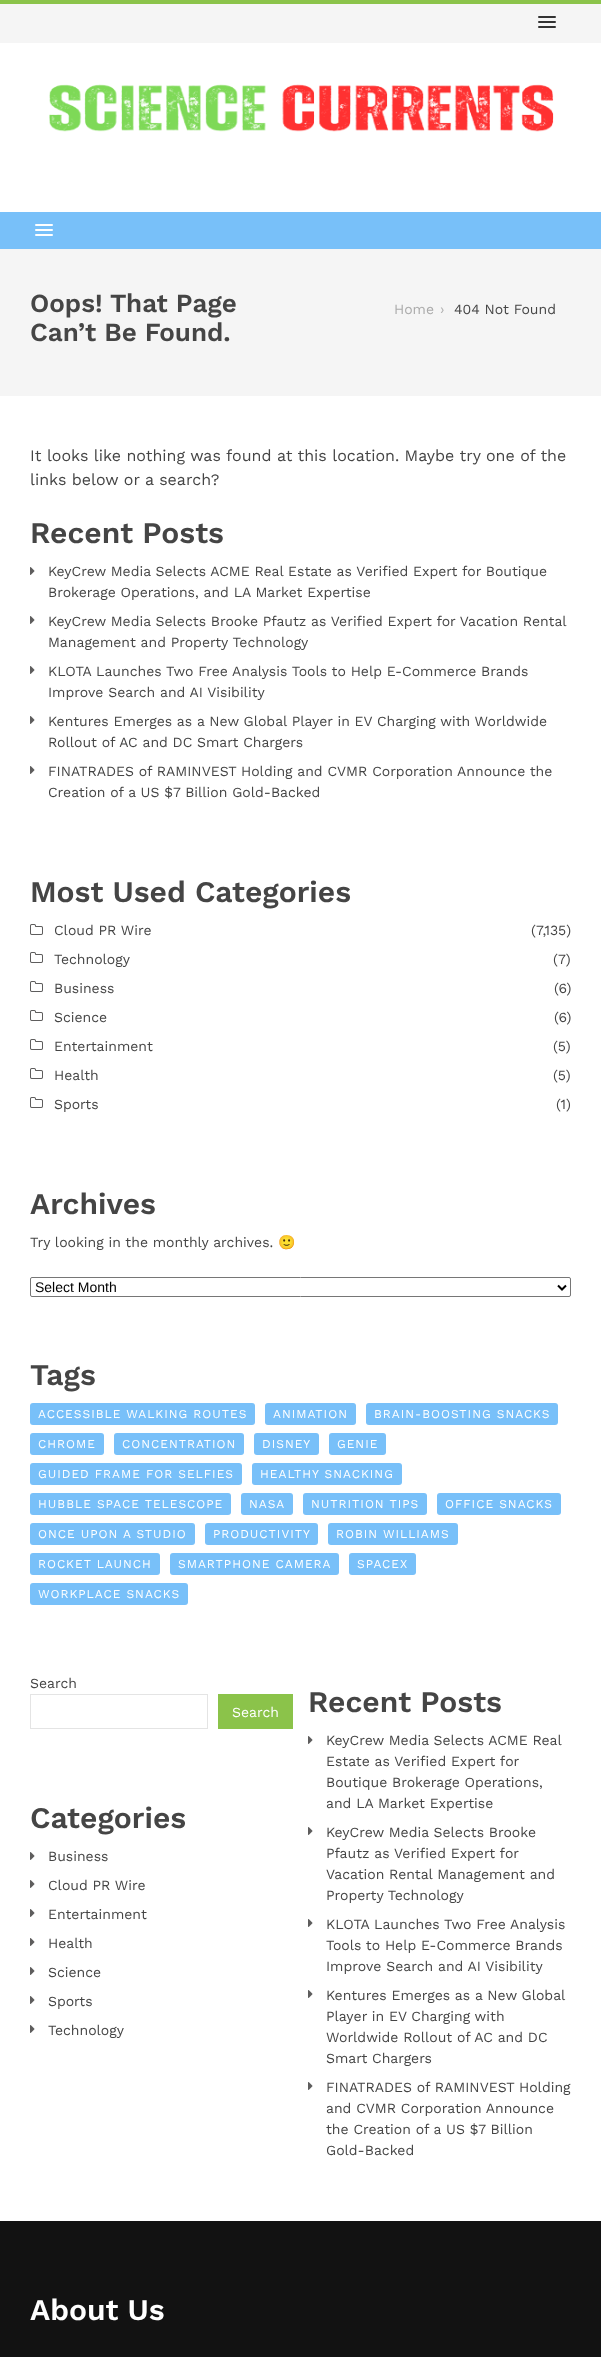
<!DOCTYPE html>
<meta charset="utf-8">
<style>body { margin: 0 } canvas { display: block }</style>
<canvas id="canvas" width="601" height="2357"></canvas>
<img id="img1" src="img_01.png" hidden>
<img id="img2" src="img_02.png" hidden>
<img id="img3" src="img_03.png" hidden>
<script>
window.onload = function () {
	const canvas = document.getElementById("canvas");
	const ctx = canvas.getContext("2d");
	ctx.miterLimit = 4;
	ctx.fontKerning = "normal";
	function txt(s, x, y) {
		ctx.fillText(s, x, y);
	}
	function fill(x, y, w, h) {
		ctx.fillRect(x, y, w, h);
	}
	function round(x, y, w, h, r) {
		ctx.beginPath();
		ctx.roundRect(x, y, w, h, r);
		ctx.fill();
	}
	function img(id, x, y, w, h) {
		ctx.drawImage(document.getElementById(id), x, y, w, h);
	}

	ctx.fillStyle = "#FFFFFF";
	fill(0, 0, 601, 2357);
	ctx.fillStyle = "#F5F5F5";
	fill(0, 4, 601, 39);
	ctx.fillStyle = "#8BC34A";
	fill(0, 0, 601, 4);
	ctx.fillStyle = "#333333";
	round(538, 16, 18, 2, 1);
	round(538, 21, 18, 2, 1);
	round(538, 26, 18, 2, 1);
	img("img1", 49, 84, 505, 48);
	ctx.fillStyle = "#78C0F9";
	fill(0, 212, 601, 37);
	ctx.fillStyle = "#FFFFFF";
	round(35, 224, 18, 2, 1);
	round(35, 229, 18, 2, 1);
	round(35, 234, 18, 2, 1);
	ctx.fillStyle = "#F5F5F5";
	fill(0, 249, 601, 147);
	img("img2", 30, 567, 5, 8);
	img("img2", 30, 616, 5, 8);
	img("img2", 30, 666, 5, 8);
	img("img2", 30, 716, 5, 8);
	img("img2", 30, 766, 5, 8);
	img("img3", 30, 924, 13, 11);
	img("img3", 30, 952, 13, 11);
	img("img3", 30, 981, 13, 11);
	img("img3", 30, 1010, 13, 11);
	img("img3", 30, 1039, 13, 11);
	img("img3", 30, 1068, 13, 11);
	img("img3", 30, 1097, 13, 11);
	ctx.beginPath();
	ctx.roundRect(30.5, 1277.5, 540, 19, 1.5);
	ctx.strokeStyle = "#767676";
	ctx.stroke();
	ctx.beginPath();
	ctx.moveTo(558, 1285.5);
	ctx.lineTo(562, 1289.5);
	ctx.lineTo(566, 1285.5);
	ctx.strokeStyle = "#000000";
	ctx.lineWidth = 2;
	ctx.stroke();
	ctx.fillStyle = "#78C0F9";
	round(30, 1403, 225, 22, 3);
	round(265, 1403, 91, 22, 3);
	round(366, 1403, 192, 22, 3);
	round(30, 1433, 74, 22, 3);
	round(114, 1433, 130, 22, 3);
	round(254, 1433, 65, 22, 3);
	round(329, 1433, 57, 22, 3);
	round(30, 1463, 212, 22, 3);
	round(252, 1463, 150, 22, 3);
	round(30, 1493, 201, 22, 3);
	round(241, 1493, 52, 22, 3);
	round(303, 1493, 124, 22, 3);
	round(437, 1493, 124, 22, 3);
	round(30, 1523, 165, 22, 3);
	round(205, 1523, 113, 22, 3);
	round(328, 1523, 130, 22, 3);
	round(30, 1553, 130, 22, 3);
	round(170, 1553, 169, 22, 3);
	round(349, 1553, 67, 22, 3);
	round(30, 1583, 158, 22, 3);
	ctx.strokeStyle = "#E4E4E4";
	ctx.lineWidth = 1;
	ctx.strokeRect(30.5, 1694.5, 177, 34);
	ctx.fillStyle = "#8BC34A";
	fill(218, 1694, 75, 35);
	img("img2", 308, 1736, 5, 8);
	img("img2", 308, 1827, 5, 8);
	img("img2", 308, 1919, 5, 8);
	img("img2", 308, 1990, 5, 8);
	img("img2", 308, 2082, 5, 8);
	img("img2", 30, 1852, 5, 8);
	img("img2", 30, 1880, 5, 8);
	img("img2", 30, 1909, 5, 8);
	img("img2", 30, 1938, 5, 8);
	img("img2", 30, 1967, 5, 8);
	img("img2", 30, 1996, 5, 8);
	img("img2", 30, 2025, 5, 8);
	ctx.fillStyle = "#121212";
	fill(0, 2221, 601, 136);
	ctx.font = "600 26px Work Sans";
	ctx.fillStyle = "#454545";
	txt("Oops! That Page", 30, 312);
	txt("Can’t Be Found.", 30, 341);
	ctx.font = "14px Work Sans";
	ctx.fillStyle = "#AAAAAA";
	txt("Home", 394, 314);
	ctx.fillStyle = "#B1B1B1";
	txt("›", 440, 314);
	ctx.fillStyle = "#454545";
	txt("404 Not Found", 454, 314);
	ctx.font = "16px Work Sans";
	txt("It looks like nothing was found at this location. Maybe try one of the", 30, 461);
	txt("links below or a search?", 30, 485);
	ctx.font = "600 30px Work Sans";
	txt("Recent Posts", 30, 543);
	ctx.font = "14px Work Sans";
	txt("KeyCrew Media Selects ACME Real Estate as Verified Expert for Boutique", 48, 576);
	txt("Brokerage Operations, and LA Market Expertise", 48, 597);
	txt("KeyCrew Media Selects Brooke Pfautz as Verified Expert for Vacation Rental", 48, 626);
	txt("Management and Property Technology", 48, 647);
	txt("KLOTA Launches Two Free Analysis Tools to Help E-Commerce Brands", 48, 676);
	txt("Improve Search and AI Visibility", 48, 697);
	txt("Kentures Emerges as a New Global Player in EV Charging with Worldwide", 48, 726);
	txt("Rollout of AC and DC Smart Chargers", 48, 747);
	txt("FINATRADES of RAMINVEST Holding and CVMR Corporation Announce the", 48, 776);
	txt("Creation of a US $7 Billion Gold-Backed", 48, 797);
	ctx.font = "600 30px Work Sans";
	txt("Most Used Categories", 30, 902);
	ctx.font = "14px Work Sans";
	txt("Cloud PR Wire", 54, 935);
	txt("(7,135)", 531, 935);
	txt("Technology", 54, 964);
	txt("(7)", 553, 964);
	txt("Business", 54, 993);
	txt("(6)", 554, 993);
	txt("Science", 54, 1022);
	txt("(6)", 554, 1022);
	txt("Entertainment", 54, 1051);
	txt("(5)", 553, 1051);
	txt("Health", 54, 1080);
	txt("(5)", 553, 1080);
	txt("Sports", 54, 1109);
	txt("(1)", 556, 1109);
	ctx.font = "600 30px Work Sans";
	txt("Archives", 30, 1214);
	ctx.font = "14px Work Sans";
	txt("Try looking in the monthly archives.", 30, 1247);
	ctx.font = "14px Noto Color Emoji";
	txt("🙂", 278, 1247);
	ctx.font = "14px Liberation Sans";
	ctx.fillStyle = "#000000";
	txt("Select Month", 35, 1292);
	ctx.font = "600 30px Work Sans";
	ctx.fillStyle = "#454545";
	txt("Tags", 30, 1385);
	ctx.letterSpacing = "1px";
	ctx.font = "12px Work Sans";
	ctx.fillStyle = "#FFFFFF";
	txt("ACCESSIBLE WALKING ROUTES", 38, 1418);
	txt("ANIMATION", 273, 1418);
	txt("BRAIN-BOOSTING SNACKS", 374, 1418);
	txt("CHROME", 38, 1448);
	txt("CONCENTRATION", 122, 1448);
	txt("DISNEY", 262, 1448);
	txt("GENIE", 337, 1448);
	txt("GUIDED FRAME FOR SELFIES", 38, 1478);
	txt("HEALTHY SNACKING", 260, 1478);
	txt("HUBBLE SPACE TELESCOPE", 38, 1508);
	txt("NASA", 249, 1508);
	txt("NUTRITION TIPS", 311, 1508);
	txt("OFFICE SNACKS", 445, 1508);
	txt("ONCE UPON A STUDIO", 38, 1538);
	txt("PRODUCTIVITY", 213, 1538);
	txt("ROBIN WILLIAMS", 336, 1538);
	txt("ROCKET LAUNCH", 38, 1568);
	txt("SMARTPHONE CAMERA", 178, 1568);
	txt("SPACEX", 357, 1568);
	txt("WORKPLACE SNACKS", 38, 1598);
	ctx.letterSpacing = "0px";
	ctx.font = "14px Work Sans";
	ctx.fillStyle = "#454545";
	txt("Search", 30, 1688);
	ctx.fillStyle = "#FFFFFF";
	txt("Search", 232, 1717);
	ctx.font = "600 30px Work Sans";
	ctx.fillStyle = "#454545";
	txt("Recent Posts", 308, 1712);
	ctx.font = "14px Work Sans";
	txt("KeyCrew Media Selects ACME Real", 326, 1745);
	txt("Estate as Verified Expert for", 326, 1766);
	txt("Boutique Brokerage Operations,", 326, 1787);
	txt("and LA Market Expertise", 326, 1808);
	txt("KeyCrew Media Selects Brooke", 326, 1837);
	txt("Pfautz as Verified Expert for", 326, 1858);
	txt("Vacation Rental Management and", 326, 1879);
	txt("Property Technology", 326, 1900);
	txt("KLOTA Launches Two Free Analysis", 326, 1929);
	txt("Tools to Help E-Commerce Brands", 326, 1950);
	txt("Improve Search and AI Visibility", 326, 1971);
	txt("Kentures Emerges as a New Global", 326, 2000);
	txt("Player in EV Charging with", 326, 2021);
	txt("Worldwide Rollout of AC and DC", 326, 2042);
	txt("Smart Chargers", 326, 2063);
	txt("FINATRADES of RAMINVEST Holding", 326, 2092);
	txt("and CVMR Corporation Announce", 326, 2113);
	txt("the Creation of a US $7 Billion", 326, 2134);
	txt("Gold-Backed", 326, 2155);
	ctx.font = "600 30px Work Sans";
	txt("Categories", 30, 1828);
	ctx.font = "14px Work Sans";
	txt("Business", 48, 1861);
	txt("Cloud PR Wire", 48, 1890);
	txt("Entertainment", 48, 1919);
	txt("Health", 48, 1948);
	txt("Science", 48, 1977);
	txt("Sports", 48, 2006);
	txt("Technology", 48, 2035);
	ctx.font = "600 30px Work Sans";
	ctx.fillStyle = "#FFFFFF";
	txt("About Us", 30, 2320);
};
</script>
